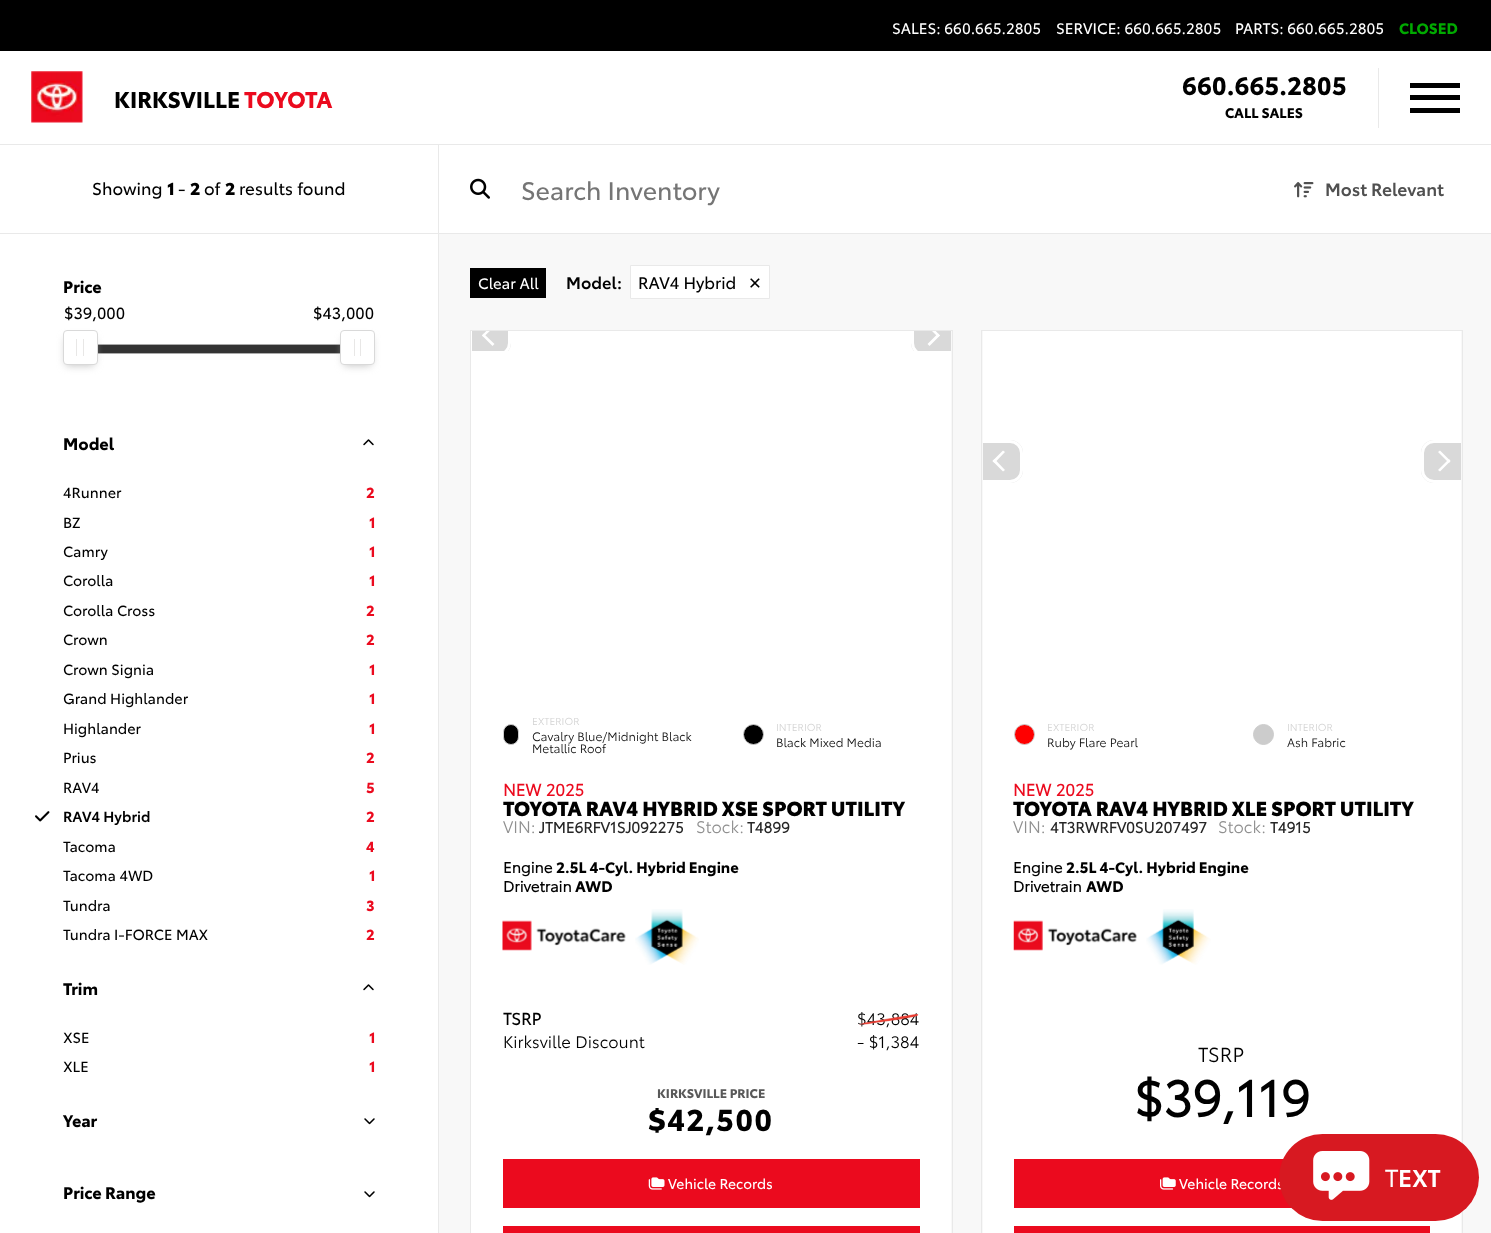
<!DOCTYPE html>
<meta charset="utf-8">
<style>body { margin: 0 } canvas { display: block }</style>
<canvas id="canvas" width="1491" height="1233"></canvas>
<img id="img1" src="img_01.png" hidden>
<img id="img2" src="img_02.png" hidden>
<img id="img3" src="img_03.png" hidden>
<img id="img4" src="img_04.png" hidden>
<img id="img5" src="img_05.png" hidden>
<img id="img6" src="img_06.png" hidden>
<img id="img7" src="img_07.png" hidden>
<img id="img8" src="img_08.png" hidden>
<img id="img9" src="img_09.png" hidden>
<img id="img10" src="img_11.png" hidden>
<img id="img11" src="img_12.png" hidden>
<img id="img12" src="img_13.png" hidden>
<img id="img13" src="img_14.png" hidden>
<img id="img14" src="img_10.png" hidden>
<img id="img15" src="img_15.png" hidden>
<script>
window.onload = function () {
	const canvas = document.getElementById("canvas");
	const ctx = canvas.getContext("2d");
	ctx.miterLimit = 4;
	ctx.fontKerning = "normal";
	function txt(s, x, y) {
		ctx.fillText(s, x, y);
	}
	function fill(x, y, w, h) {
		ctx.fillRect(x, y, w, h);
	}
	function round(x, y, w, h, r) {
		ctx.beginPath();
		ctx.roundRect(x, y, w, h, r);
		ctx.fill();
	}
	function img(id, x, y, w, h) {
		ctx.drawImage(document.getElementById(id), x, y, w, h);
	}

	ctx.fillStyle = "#F8F8F8";
	fill(0, 0, 1491, 1233);
	ctx.fillStyle = "#000000";
	fill(0, 0, 1491, 51);
	ctx.fillStyle = "#FFFFFF";
	fill(0, 51, 1491, 93);
	ctx.fillStyle = "#E9E9E9";
	fill(0, 144, 1491, 1);
	img("img1", 31, 71, 52, 52);
	fill(1378, 68, 1, 60);
	ctx.fillStyle = "#000000";
	fill(1410, 83, 50, 5);
	fill(1410, 95, 50, 5);
	fill(1410, 108, 50, 5);
	ctx.fillStyle = "#FFFFFF";
	fill(0, 145, 1491, 88);
	ctx.fillStyle = "#E9E9E9";
	fill(0, 233, 1491, 1);
	fill(438, 145, 1, 88);
	img("img2", 470, 178, 20, 21);
	img("img3", 1294, 182, 20, 16);
	ctx.fillStyle = "#FFFFFF";
	fill(0, 234, 438, 999);
	ctx.fillStyle = "#E9E9E9";
	fill(438, 234, 1, 999);
	ctx.strokeStyle = "#AAAAAA";
	ctx.strokeRect(63.5, 344.5, 279, 9);
	ctx.fillStyle = "#333333";
	fill(98, 345, 242, 8);
	ctx.fillStyle = "#BBBBBB";
	ctx.filter = "blur(4px)";
	ctx.beginPath();
	ctx.rect(66, 338, 28, 27);
	ctx.fill();
	ctx.filter = "none";
	ctx.fillStyle = "#FFFFFF";
	ctx.beginPath();
	ctx.roundRect(63.5, 330.5, 34, 34, 3.5);
	ctx.fill();
	ctx.strokeStyle = "#D9D9D9";
	ctx.stroke();
	ctx.fillStyle = "#E8E7E6";
	fill(76, 339, 1, 17);
	fill(83, 339, 1, 17);
	ctx.fillStyle = "#BBBBBB";
	ctx.filter = "blur(4px)";
	ctx.beginPath();
	ctx.rect(344, 338, 27, 27);
	ctx.fill();
	ctx.filter = "none";
	ctx.fillStyle = "#FFFFFF";
	ctx.beginPath();
	ctx.roundRect(340.5, 330.5, 34, 34, 3.5);
	ctx.fill();
	ctx.stroke();
	ctx.fillStyle = "#E8E7E6";
	fill(354, 339, 1, 17);
	fill(360, 339, 1, 17);
	img("img4", 363, 439, 11, 7);
	img("img5", 35, 811, 15, 11);
	img("img4", 363, 984, 11, 7);
	img("img6", 364, 1118, 11, 7);
	img("img7", 364, 1191, 11, 7);
	ctx.fillStyle = "#000000";
	fill(470, 268, 76, 30);
	ctx.fillStyle = "#FFFFFF";
	ctx.beginPath();
	ctx.rect(630.5, 265.5, 139, 33);
	ctx.fill();
	ctx.strokeStyle = "#E9E9E9";
	ctx.stroke();
	ctx.strokeRect(470.5, 330.5, 482, 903);
	fill(471, 331, 480, 902);
	ctx.save();
	ctx.beginPath();
	ctx.rect(471, 331, 480, 20);
	ctx.clip();
	ctx.fillStyle = "#D9D9D9";
	ctx.beginPath();
	ctx.roundRect(471, 331, 40, 25, [0, 0, 13, 0]);
	ctx.fill();
	ctx.beginPath();
	ctx.roundRect(470.5, 315.5, 39, 39, [0, 11.5, 11.5, 0]);
	ctx.strokeStyle = "#FFFFFF";
	ctx.lineWidth = 3;
	ctx.stroke();
	ctx.restore();
	ctx.beginPath();
	ctx.moveTo(494.5, 344);
	ctx.lineTo(492.5, 346);
	ctx.lineTo(482, 335.5);
	ctx.lineTo(483.5, 333.5);
	ctx.closePath();
	ctx.fill();
	ctx.save();
	ctx.beginPath();
	ctx.rect(471, 331, 480, 20);
	ctx.clip();
	ctx.beginPath();
	ctx.moveTo(494.5, 326.5);
	ctx.lineTo(483.5, 337);
	ctx.lineTo(482, 335.5);
	ctx.lineTo(492.5, 324.5);
	ctx.closePath();
	ctx.fill();
	ctx.fillStyle = "#D9D9D9";
	ctx.beginPath();
	ctx.roundRect(911, 331, 40, 25, [0, 0, 0, 13]);
	ctx.fill();
	ctx.beginPath();
	ctx.roundRect(912.5, 315.5, 40, 39, [11.5, 0, 0, 11.5]);
	ctx.strokeStyle = "#FFFFFF";
	ctx.lineWidth = 3;
	ctx.stroke();
	ctx.fillStyle = "#FFFFFF";
	ctx.beginPath();
	ctx.moveTo(927.5, 326.5);
	ctx.lineTo(929.5, 324.5);
	ctx.lineTo(940, 335.5);
	ctx.lineTo(938, 337);
	ctx.closePath();
	ctx.fill();
	ctx.restore();
	ctx.beginPath();
	ctx.moveTo(927.5, 344);
	ctx.lineTo(938, 333.5);
	ctx.lineTo(940, 335.5);
	ctx.lineTo(929.5, 346);
	ctx.closePath();
	ctx.fill();
	ctx.fillStyle = "#000000";
	ctx.beginPath();
	ctx.roundRect(503.5, 724.5, 15, 20, 7.5);
	ctx.fill();
	ctx.strokeStyle = "#CCCCCC";
	ctx.stroke();
	ctx.beginPath();
	ctx.arc(753.5, 734.5, 10, 0, Math.PI * 2);
	ctx.fill();
	ctx.stroke();
	img("img8", 502, 920, 124, 31);
	img("img9", 635, 909, 64, 56);
	ctx.fillStyle = "#EB0A1E";
	fill(503, 1159, 417, 49);
	img("img10", 648, 1177, 17, 13);
	fill(503, 1226, 417, 7);
	ctx.strokeStyle = "#E9E9E9";
	ctx.strokeRect(981.5, 330.5, 481, 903);
	ctx.fillStyle = "#FFFFFF";
	fill(983, 331, 478, 902);
	ctx.fillStyle = "#D9D9D9";
	ctx.beginPath();
	ctx.roundRect(983, 440, 40, 43, [0, 13, 13, 0]);
	ctx.fill();
	ctx.save();
	ctx.beginPath();
	ctx.rect(983, 331, 478, 272);
	ctx.clip();
	ctx.beginPath();
	ctx.roundRect(981.5, 441.5, 40, 40, [0, 11.5, 11.5, 0]);
	ctx.strokeStyle = "#FFFFFF";
	ctx.lineWidth = 3;
	ctx.stroke();
	ctx.restore();
	ctx.fillStyle = "#FFFFFF";
	ctx.beginPath();
	ctx.moveTo(1005, 470);
	ctx.lineTo(1003, 471.5);
	ctx.lineTo(992.5, 461);
	ctx.lineTo(994.5, 459);
	ctx.closePath();
	ctx.fill();
	ctx.beginPath();
	ctx.moveTo(1005, 452);
	ctx.lineTo(994.5, 463);
	ctx.lineTo(992.5, 461);
	ctx.lineTo(1003, 450.5);
	ctx.closePath();
	ctx.fill();
	ctx.fillStyle = "#D9D9D9";
	ctx.beginPath();
	ctx.roundRect(1421, 440, 40, 43, [13, 0, 0, 13]);
	ctx.fill();
	ctx.save();
	ctx.beginPath();
	ctx.rect(983, 331, 478, 272);
	ctx.clip();
	ctx.beginPath();
	ctx.roundRect(1422.5, 441.5, 40, 40, [11.5, 0, 0, 11.5]);
	ctx.strokeStyle = "#FFFFFF";
	ctx.lineWidth = 3;
	ctx.stroke();
	ctx.restore();
	ctx.fillStyle = "#FFFFFF";
	ctx.beginPath();
	ctx.moveTo(1438, 452);
	ctx.lineTo(1440, 450.5);
	ctx.lineTo(1450.5, 461);
	ctx.lineTo(1449, 463);
	ctx.closePath();
	ctx.fill();
	ctx.beginPath();
	ctx.moveTo(1438, 470);
	ctx.lineTo(1449, 459);
	ctx.lineTo(1450.5, 461);
	ctx.lineTo(1440, 471.5);
	ctx.closePath();
	ctx.fill();
	ctx.fillStyle = "#FF0000";
	ctx.beginPath();
	ctx.arc(1024.5, 734.5, 10, 0, Math.PI * 2);
	ctx.fill();
	ctx.strokeStyle = "#CCCCCC";
	ctx.stroke();
	ctx.fillStyle = "#CCCCCC";
	ctx.beginPath();
	ctx.arc(1263.5, 734.5, 10, 0, Math.PI * 2);
	ctx.fill();
	ctx.stroke();
	img("img11", 1013, 920, 124, 31);
	img("img12", 1146, 909, 65, 56);
	ctx.fillStyle = "#EB0A1E";
	fill(1014, 1159, 278, 49);
	img("img13", 1160, 1177, 16, 13);
	fill(1014, 1226, 416, 7);
	ctx.font = "15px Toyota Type";
	ctx.fillStyle = "#FFFFFF";
	txt("SALES: 660.665.2805", 892, 34);
	txt("SERVICE: 660.665.2805", 1056, 34);
	txt("PARTS: 660.665.2805", 1235, 34);
	ctx.font = "bold 15px Toyota Type";
	ctx.fillStyle = "#00A900";
	txt("CLOSED", 1399, 34);
	ctx.font = "bold 22.5px Toyota Type";
	ctx.fillStyle = "#000000";
	txt("KIRKSVILLE", 114, 108);
	ctx.fillStyle = "#EB0A1E";
	txt("TOYOTA", 244, 108);
	ctx.font = "bold 25px Toyota Type";
	ctx.fillStyle = "#000000";
	txt("660.665.2805", 1182, 95);
	ctx.font = "bold 13.75px Toyota Type";
	txt("CALL SALES", 1225, 118);
	ctx.font = "17px Toyota Type";
	txt("Showing", 92, 195);
	ctx.font = "900 17px Toyota Type";
	txt("1", 167, 195);
	ctx.font = "17px Toyota Type";
	txt("-", 178, 195);
	ctx.font = "900 17px Toyota Type";
	txt("2", 190, 195);
	ctx.font = "17px Toyota Type";
	txt("of", 204, 195);
	ctx.font = "900 17px Toyota Type";
	txt("2", 225, 195);
	ctx.font = "17px Toyota Type";
	txt("results found", 239, 195);
	ctx.font = "25px Toyota Type";
	ctx.fillStyle = "#757575";
	txt("Search Inventory", 521, 200);
	ctx.font = "600 17.5px Toyota Type";
	ctx.fillStyle = "#505050";
	txt("Most Relevant", 1325, 196);
	ctx.font = "bold 16.5px Toyota Type";
	ctx.fillStyle = "#000000";
	txt("Price", 63, 293);
	ctx.font = "16px Toyota Type";
	txt("$39,000", 64, 319);
	txt("$43,000", 313, 319);
	ctx.font = "bold 16.5px Toyota Type";
	txt("Model", 63, 450);
	ctx.font = "14.5px Toyota Type";
	txt("4Runner", 63, 498);
	ctx.font = "bold 14.5px Toyota Type";
	ctx.fillStyle = "#EB0A1E";
	txt("2", 366, 498);
	ctx.font = "14.5px Toyota Type";
	ctx.fillStyle = "#000000";
	txt("BZ", 63, 528);
	ctx.font = "bold 14.5px Toyota Type";
	ctx.fillStyle = "#EB0A1E";
	txt("1", 369, 528);
	ctx.font = "14.5px Toyota Type";
	ctx.fillStyle = "#000000";
	txt("Camry", 63, 557);
	ctx.font = "bold 14.5px Toyota Type";
	ctx.fillStyle = "#EB0A1E";
	txt("1", 369, 557);
	ctx.font = "14.5px Toyota Type";
	ctx.fillStyle = "#000000";
	txt("Corolla", 63, 586);
	ctx.font = "bold 14.5px Toyota Type";
	ctx.fillStyle = "#EB0A1E";
	txt("1", 369, 586);
	ctx.font = "14.5px Toyota Type";
	ctx.fillStyle = "#000000";
	txt("Corolla Cross", 63, 616);
	ctx.font = "bold 14.5px Toyota Type";
	ctx.fillStyle = "#EB0A1E";
	txt("2", 366, 616);
	ctx.font = "14.5px Toyota Type";
	ctx.fillStyle = "#000000";
	txt("Crown", 63, 645);
	ctx.font = "bold 14.5px Toyota Type";
	ctx.fillStyle = "#EB0A1E";
	txt("2", 366, 645);
	ctx.font = "14.5px Toyota Type";
	ctx.fillStyle = "#000000";
	txt("Crown Signia", 63, 675);
	ctx.font = "bold 14.5px Toyota Type";
	ctx.fillStyle = "#EB0A1E";
	txt("1", 369, 675);
	ctx.font = "14.5px Toyota Type";
	ctx.fillStyle = "#000000";
	txt("Grand Highlander", 63, 704);
	ctx.font = "bold 14.5px Toyota Type";
	ctx.fillStyle = "#EB0A1E";
	txt("1", 369, 704);
	ctx.font = "14.5px Toyota Type";
	ctx.fillStyle = "#000000";
	txt("Highlander", 63, 734);
	ctx.font = "bold 14.5px Toyota Type";
	ctx.fillStyle = "#EB0A1E";
	txt("1", 369, 734);
	ctx.font = "14.5px Toyota Type";
	ctx.fillStyle = "#000000";
	txt("Prius", 63, 763);
	ctx.font = "bold 14.5px Toyota Type";
	ctx.fillStyle = "#EB0A1E";
	txt("2", 366, 763);
	ctx.font = "14.5px Toyota Type";
	ctx.fillStyle = "#000000";
	txt("RAV4", 63, 793);
	ctx.font = "bold 14.5px Toyota Type";
	ctx.fillStyle = "#EB0A1E";
	txt("5", 366, 793);
	ctx.font = "600 14.5px Toyota Type";
	ctx.fillStyle = "#000000";
	txt("RAV4 Hybrid", 63, 822);
	ctx.font = "bold 14.5px Toyota Type";
	ctx.fillStyle = "#EB0A1E";
	txt("2", 366, 822);
	ctx.font = "14.5px Toyota Type";
	ctx.fillStyle = "#000000";
	txt("Tacoma", 63, 852);
	ctx.font = "bold 14.5px Toyota Type";
	ctx.fillStyle = "#EB0A1E";
	txt("4", 366, 852);
	ctx.font = "14.5px Toyota Type";
	ctx.fillStyle = "#000000";
	txt("Tacoma 4WD", 63, 881);
	ctx.font = "bold 14.5px Toyota Type";
	ctx.fillStyle = "#EB0A1E";
	txt("1", 369, 881);
	ctx.font = "14.5px Toyota Type";
	ctx.fillStyle = "#000000";
	txt("Tundra", 63, 911);
	ctx.font = "bold 14.5px Toyota Type";
	ctx.fillStyle = "#EB0A1E";
	txt("3", 366, 911);
	ctx.font = "14.5px Toyota Type";
	ctx.fillStyle = "#000000";
	txt("Tundra I-FORCE MAX", 63, 940);
	ctx.font = "bold 14.5px Toyota Type";
	ctx.fillStyle = "#EB0A1E";
	txt("2", 366, 940);
	ctx.font = "bold 16.5px Toyota Type";
	ctx.fillStyle = "#000000";
	txt("Trim", 63, 995);
	ctx.font = "14.5px Toyota Type";
	txt("XSE", 63, 1043);
	ctx.font = "bold 14.5px Toyota Type";
	ctx.fillStyle = "#EB0A1E";
	txt("1", 369, 1043);
	ctx.font = "14.5px Toyota Type";
	ctx.fillStyle = "#000000";
	txt("XLE", 63, 1072);
	ctx.font = "bold 14.5px Toyota Type";
	ctx.fillStyle = "#EB0A1E";
	txt("1", 369, 1072);
	ctx.font = "bold 16.5px Toyota Type";
	ctx.fillStyle = "#000000";
	txt("Year", 63, 1127);
	txt("Price Range", 63, 1199);
	ctx.font = "15px Toyota Type";
	ctx.fillStyle = "#FFFFFF";
	txt("Clear All", 478, 289);
	ctx.font = "600 16.5px Toyota Type";
	ctx.fillStyle = "#000000";
	txt("Model", 566, 289);
	txt(":", 617, 289);
	ctx.font = "16.5px Toyota Type";
	txt("RAV4 Hybrid", 638, 289);
	ctx.font = "16.5px DejaVu Sans";
	txt("✕", 748, 289);
	ctx.font = "10px 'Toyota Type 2'";
	ctx.fillStyle = "#D3D3D3";
	txt("EXTERIOR", 532, 725);
	ctx.font = "12px 'Toyota Type 2'";
	ctx.fillStyle = "#111111";
	txt("Cavalry Blue/Midnight Black", 532, 741);
	txt("Metallic Roof", 532, 753);
	ctx.font = "10px 'Toyota Type 2'";
	ctx.fillStyle = "#D3D3D3";
	txt("INTERIOR", 776, 731);
	ctx.font = "12px 'Toyota Type 2'";
	ctx.fillStyle = "#111111";
	txt("Black Mixed Media", 776, 747);
	ctx.font = "bold 16.5px 'Toyota Type 2'";
	ctx.fillStyle = "#EB0A1E";
	txt("NEW 2025", 503, 796);
	ctx.font = "900 20px Toyota Type";
	ctx.fillStyle = "#000000";
	txt("TOYOTA RAV4 HYBRID XSE SPORT UTILITY", 503, 816);
	ctx.font = "16.5px 'Toyota Type 2'";
	ctx.fillStyle = "#909090";
	txt("VIN:", 503, 833);
	ctx.font = "bold 15px 'Toyota Type 2'";
	ctx.fillStyle = "#262626";
	txt("JTME6RFV1SJ092275", 539, 833);
	ctx.font = "16.5px 'Toyota Type 2'";
	ctx.fillStyle = "#909090";
	txt("Stock:", 696, 833);
	ctx.font = "bold 15px 'Toyota Type 2'";
	ctx.fillStyle = "#262626";
	txt("T4899", 747, 833);
	ctx.fillStyle = "#000000";
	txt("Engine", 503, 873);
	ctx.font = "bold 15px Toyota Type";
	txt("2.5L 4-Cyl. Hybrid Engine", 556, 873);
	ctx.font = "bold 15px 'Toyota Type 2'";
	txt("Drivetrain", 503, 892);
	ctx.font = "bold 15px Toyota Type";
	txt("AWD", 575, 892);
	ctx.font = "bold 16.5px 'Toyota Type 2'";
	txt("TSRP", 503, 1025);
	ctx.font = "16.5px 'Toyota Type 2'";
	txt("$43,884", 857, 1025);
	img("img14", 859, 1013, 60, 12);
	txt("Kirksville Discount", 503, 1048);
	txt("- $1,384", 857, 1048);
	ctx.font = "bold 12.5px Toyota Type";
	ctx.fillStyle = "#595959";
	txt("KIRKSVILLE PRICE", 657, 1098);
	ctx.letterSpacing = "1.25px";
	ctx.font = "bold 30px Toyota Type";
	ctx.fillStyle = "#000000";
	txt("$42,500", 648, 1131);
	ctx.letterSpacing = "0px";
	ctx.font = "14px Toyota Type";
	ctx.fillStyle = "#FFFFFF";
	txt("Vehicle Records", 668, 1189);
	ctx.font = "10px 'Toyota Type 2'";
	ctx.fillStyle = "#D3D3D3";
	txt("EXTERIOR", 1047, 731);
	ctx.font = "12px 'Toyota Type 2'";
	ctx.fillStyle = "#111111";
	txt("Ruby Flare Pearl", 1047, 747);
	ctx.font = "10px 'Toyota Type 2'";
	ctx.fillStyle = "#D3D3D3";
	txt("INTERIOR", 1287, 731);
	ctx.font = "12px 'Toyota Type 2'";
	ctx.fillStyle = "#111111";
	txt("Ash Fabric", 1287, 747);
	ctx.font = "bold 16.5px 'Toyota Type 2'";
	ctx.fillStyle = "#EB0A1E";
	txt("NEW 2025", 1013, 796);
	ctx.font = "900 20px Toyota Type";
	ctx.fillStyle = "#000000";
	txt("TOYOTA RAV4 HYBRID XLE SPORT UTILITY", 1013, 816);
	ctx.font = "16.5px 'Toyota Type 2'";
	ctx.fillStyle = "#909090";
	txt("VIN:", 1013, 833);
	ctx.font = "bold 15px 'Toyota Type 2'";
	ctx.fillStyle = "#262626";
	txt("4T3RWRFV0SU207497", 1050, 833);
	ctx.font = "16.5px 'Toyota Type 2'";
	ctx.fillStyle = "#909090";
	txt("Stock:", 1218, 833);
	ctx.font = "bold 15px 'Toyota Type 2'";
	ctx.fillStyle = "#262626";
	txt("T4915", 1270, 833);
	ctx.fillStyle = "#000000";
	txt("Engine", 1013, 873);
	ctx.font = "bold 15px Toyota Type";
	txt("2.5L 4-Cyl. Hybrid Engine", 1066, 873);
	ctx.font = "bold 15px 'Toyota Type 2'";
	txt("Drivetrain", 1013, 892);
	ctx.font = "bold 15px Toyota Type";
	txt("AWD", 1086, 892);
	ctx.font = "20px 'Toyota Type 2'";
	txt("TSRP", 1198, 1062);
	ctx.font = "bold 50px 'Toyota Type 2'";
	txt("$39,119", 1134, 1117);
	ctx.font = "14px Toyota Type";
	ctx.fillStyle = "#FFFFFF";
	txt("Vehicle Records", 1179, 1189);
	ctx.fillStyle = "#D71921";
	round(1279, 1134, 200, 87, 43.5);
	img("img15", 1313, 1151, 57, 49);
	ctx.font = "24px Noto Sans";
	ctx.fillStyle = "#FFFFFF";
	txt("T", 1385, 1187);
	ctx.font = "600 24px 'Toyota Type 2'";
	txt("EXT", 1398, 1187);
};
</script>
